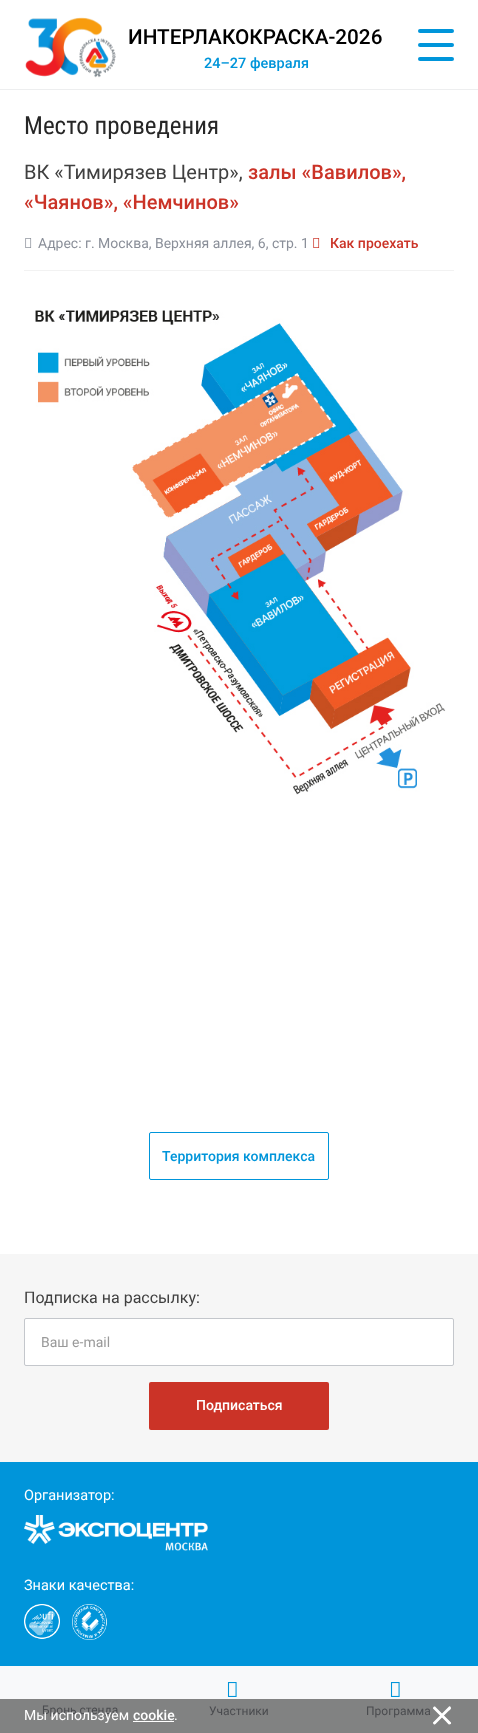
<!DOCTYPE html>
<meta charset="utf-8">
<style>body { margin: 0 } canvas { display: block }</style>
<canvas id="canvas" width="478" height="1733"></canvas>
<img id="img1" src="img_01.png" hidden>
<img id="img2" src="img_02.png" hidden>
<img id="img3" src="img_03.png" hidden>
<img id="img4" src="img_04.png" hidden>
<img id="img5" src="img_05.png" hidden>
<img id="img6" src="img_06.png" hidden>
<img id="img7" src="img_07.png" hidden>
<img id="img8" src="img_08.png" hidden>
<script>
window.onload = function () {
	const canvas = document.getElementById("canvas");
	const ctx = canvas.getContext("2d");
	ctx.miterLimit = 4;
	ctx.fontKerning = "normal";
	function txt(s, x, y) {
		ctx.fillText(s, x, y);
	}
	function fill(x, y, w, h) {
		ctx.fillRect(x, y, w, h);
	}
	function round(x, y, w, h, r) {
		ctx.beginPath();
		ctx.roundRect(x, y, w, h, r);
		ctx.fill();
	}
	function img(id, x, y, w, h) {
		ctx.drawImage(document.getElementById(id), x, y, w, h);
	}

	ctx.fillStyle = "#FFFFFF";
	fill(0, 0, 478, 1733);
	ctx.fillStyle = "#EDEEEF";
	fill(0, 89, 478, 1);
	img("img1", 25, 17, 91, 61);
	ctx.fillStyle = "#0095DA";
	round(418, 43, 36, 4, 2);
	round(418, 29, 36, 4, 2);
	round(418, 57, 36, 4, 2);
	img("img2", 25, 238, 7, 10);
	img("img3", 313, 238, 7, 10);
	ctx.fillStyle = "#F2F2F2";
	fill(24, 270, 430, 1);
	img("img4", 35, 310, 411, 485);
	ctx.beginPath();
	ctx.roundRect(149.5, 1132.5, 179, 47, 1.5);
	ctx.strokeStyle = "#0095DA";
	ctx.stroke();
	ctx.fillStyle = "#F6F6F6";
	fill(0, 1254, 478, 208);
	ctx.fillStyle = "#FFFFFF";
	ctx.beginPath();
	ctx.roundRect(24.5, 1318.5, 429, 47, 1.5);
	ctx.fill();
	ctx.strokeStyle = "#C4C7CC";
	ctx.stroke();
	ctx.fillStyle = "#CB3327";
	round(149, 1382, 180, 48, 2);
	ctx.fillStyle = "#0095DA";
	fill(0, 1462, 478, 204);
	img("img5", 24, 1515, 184, 36);
	img("img6", 24, 1604, 36, 35);
	img("img7", 72, 1604, 35, 36);
	ctx.fillStyle = "#F8F9FA";
	fill(0, 1666, 478, 67);
	img("img8", 227, 1682, 10, 15);
	img("img8", 390, 1682, 10, 15);
	ctx.font = "500 20.75px Roboto";
	ctx.fillStyle = "#000000";
	txt("ИНТЕРЛАКОКРАСКА-2026", 128, 44);
	ctx.font = "500 14.5px Roboto";
	ctx.fillStyle = "#0095DA";
	txt("24–27 февраля", 204, 68);
	ctx.font = "25px Roboto Condensed";
	ctx.fillStyle = "#262626";
	txt("Место проведения", 24, 134);
	ctx.font = "20px Roboto";
	ctx.fillStyle = "#404040";
	txt("ВК «Тимирязев Центр»,", 24, 179);
	ctx.font = "500 20px Roboto";
	ctx.fillStyle = "#CB3327";
	txt("залы «Вавилов»,", 248, 179);
	txt("«Чаянов», «Немчинов»", 24, 209);
	ctx.font = "14px Roboto";
	ctx.fillStyle = "#8A8F99";
	txt("Адрес: г. Москва, Верхняя аллея, 6, стр. 1", 38, 248);
	ctx.font = "500 14px Roboto";
	ctx.fillStyle = "#CB3327";
	txt("Как проехать", 330, 248);
	ctx.fillStyle = "#0095DA";
	txt("Территория комплекса", 162, 1161);
	ctx.font = "16px Roboto";
	ctx.fillStyle = "#404040";
	txt("Подписка на рассылку:", 24, 1303);
	ctx.font = "14px Roboto";
	ctx.fillStyle = "#999999";
	txt("Ваш e-mail", 41, 1347);
	ctx.font = "500 14px Roboto";
	ctx.fillStyle = "#FFFFFF";
	txt("Подписаться", 196, 1410);
	ctx.font = "14.5px Roboto";
	txt("Организатор:", 24, 1500);
	txt("Знаки качества:", 24, 1590);
	ctx.font = "12px Roboto";
	ctx.fillStyle = "#6D7179";
	txt("Бронь стенда", 42, 1714);
	txt("Участники", 209, 1715);
	txt("Программа", 366, 1715);
	ctx.fillStyle = "rgba(50, 50, 50, 0.6)";
	fill(0, 1699, 478, 34);
	ctx.font = "14px Roboto";
	ctx.fillStyle = "#FFFFFF";
	txt("Мы используем", 24, 1720);
	ctx.font = "500 14px Roboto";
	txt("cookie", 133, 1720);
	fill(133, 1721, 41, 1);
	ctx.font = "14px Roboto";
	txt(".", 174, 1720);
	ctx.beginPath();
	ctx.moveTo(435.5, 1707);
	ctx.lineTo(451, 1722.5);
	ctx.bezierCurveTo(451.5, 1723.5, 450.5, 1724.5, 449, 1724.5);
	ctx.bezierCurveTo(448, 1724, 446, 1721.5, 446, 1721.5);
	ctx.lineTo(433.5, 1709);
	ctx.bezierCurveTo(432, 1708, 434.5, 1705.5, 435.5, 1707);
	ctx.closePath();
	ctx.fill();
	ctx.beginPath();
	ctx.moveTo(433.5, 1722);
	ctx.lineTo(449, 1706.5);
	ctx.bezierCurveTo(450, 1706, 451, 1707, 451, 1708.5);
	ctx.bezierCurveTo(450.5, 1709.5, 448, 1711.5, 448, 1711.5);
	ctx.lineTo(435.5, 1724);
	ctx.bezierCurveTo(434.5, 1725.5, 432, 1723, 433.5, 1722);
	ctx.closePath();
	ctx.fill();
};
</script>
